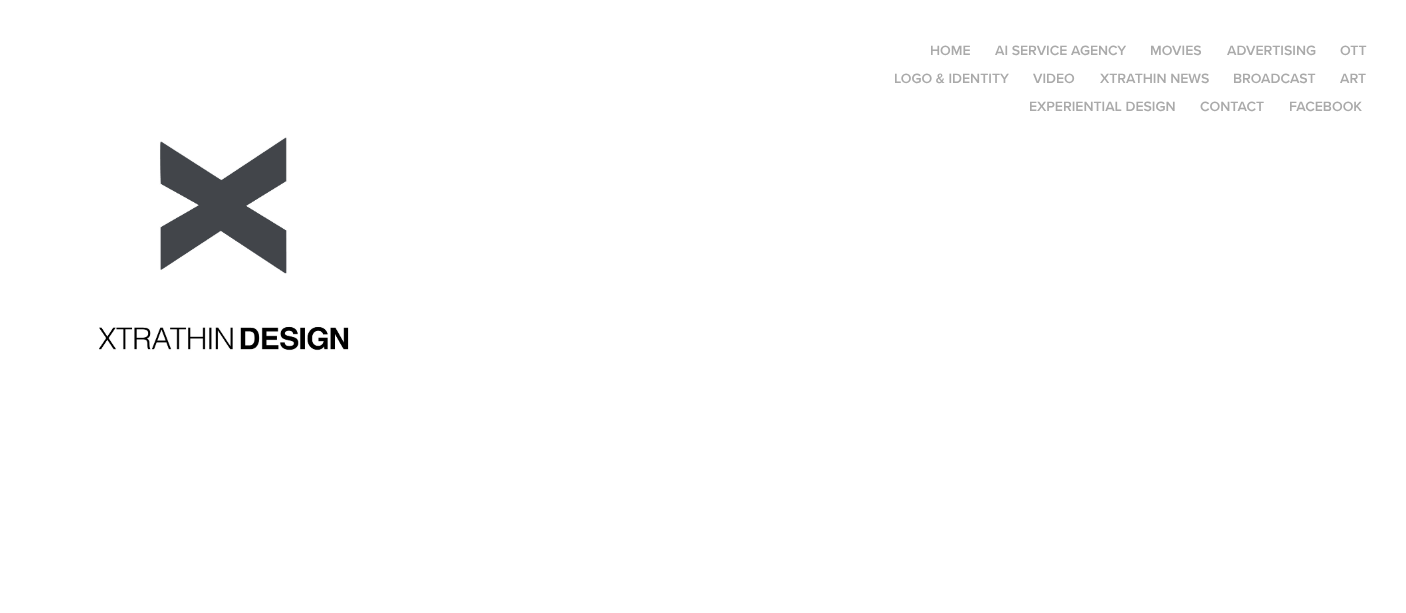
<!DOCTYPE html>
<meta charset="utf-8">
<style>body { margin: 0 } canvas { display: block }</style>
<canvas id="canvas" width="1406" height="613"></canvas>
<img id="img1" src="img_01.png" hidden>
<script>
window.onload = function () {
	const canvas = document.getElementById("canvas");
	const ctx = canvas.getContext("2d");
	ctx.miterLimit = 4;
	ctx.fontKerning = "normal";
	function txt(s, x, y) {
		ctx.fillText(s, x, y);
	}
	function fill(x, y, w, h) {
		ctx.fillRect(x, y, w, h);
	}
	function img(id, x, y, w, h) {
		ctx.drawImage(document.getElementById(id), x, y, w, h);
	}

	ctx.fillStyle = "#FFFFFF";
	fill(0, 0, 1406, 613);
	img("img1", 99, 137, 250, 214);
	ctx.font = "600 14px Proxima Nova";
	ctx.fillStyle = "#AAAAAA";
	txt("HOME", 930, 55);
	txt("AI SERVICE AGENCY", 995, 55);
	txt("MOVIES", 1150, 55);
	txt("ADVERTISING", 1227, 55);
	txt("OTT", 1340, 55);
	txt("LOGO & IDENTITY", 894, 83);
	txt("VIDEO", 1033, 83);
	txt("XTRATHIN NEWS", 1100, 83);
	txt("BROADCAST", 1233, 83);
	txt("ART", 1340, 83);
	txt("EXPERIENTIAL DESIGN", 1029, 111);
	txt("CONTACT", 1200, 111);
	txt("FACEBOOK", 1289, 111);
};
</script>
